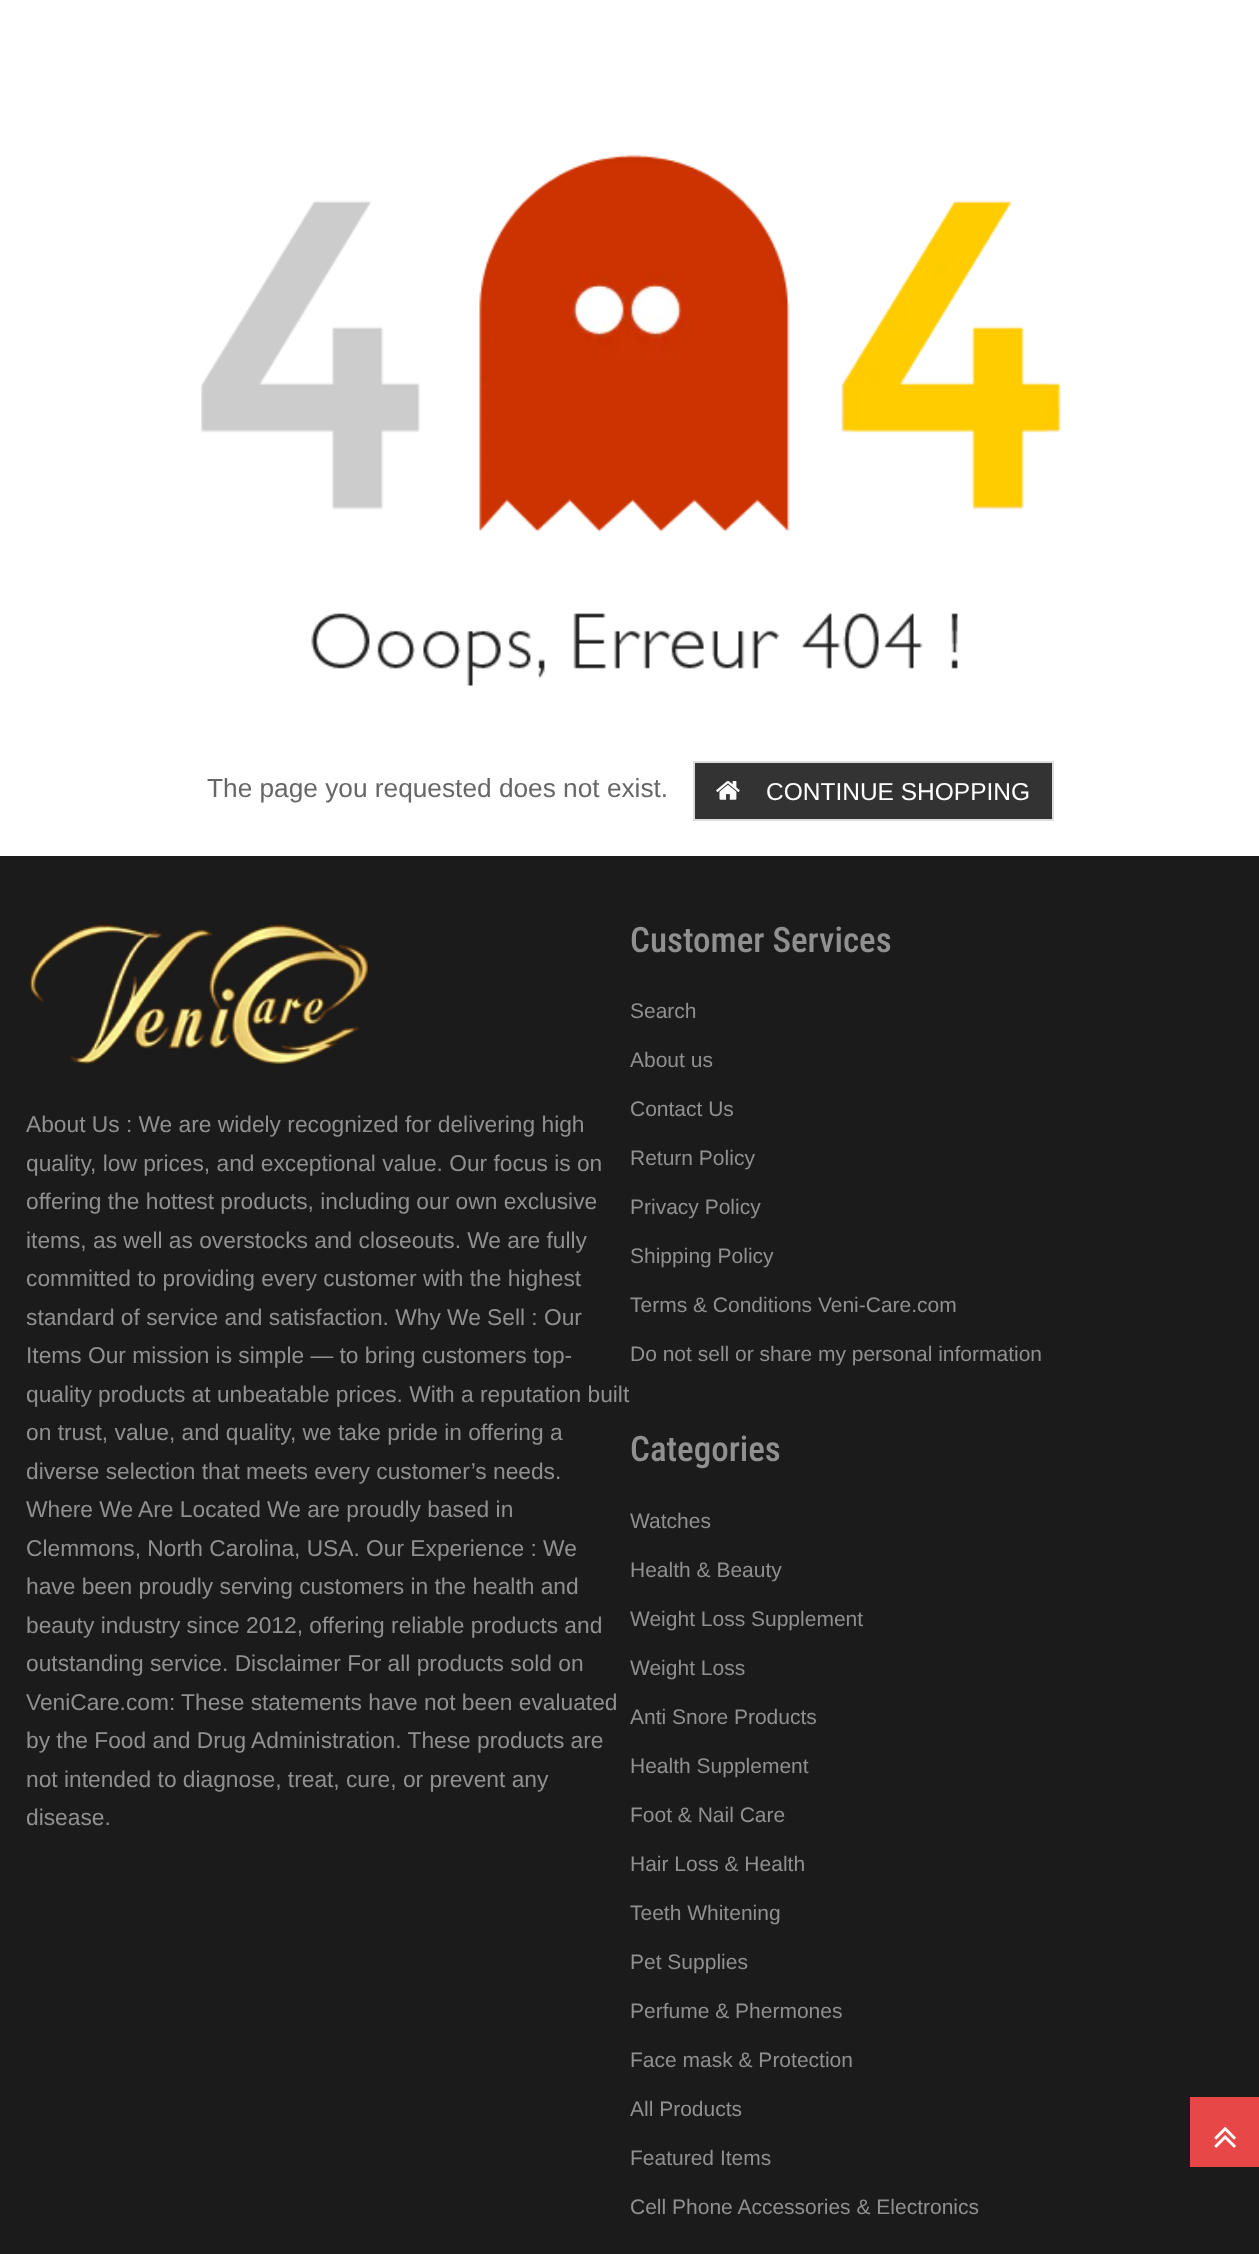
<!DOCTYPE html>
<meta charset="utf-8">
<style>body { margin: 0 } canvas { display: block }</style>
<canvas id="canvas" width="1259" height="2254"></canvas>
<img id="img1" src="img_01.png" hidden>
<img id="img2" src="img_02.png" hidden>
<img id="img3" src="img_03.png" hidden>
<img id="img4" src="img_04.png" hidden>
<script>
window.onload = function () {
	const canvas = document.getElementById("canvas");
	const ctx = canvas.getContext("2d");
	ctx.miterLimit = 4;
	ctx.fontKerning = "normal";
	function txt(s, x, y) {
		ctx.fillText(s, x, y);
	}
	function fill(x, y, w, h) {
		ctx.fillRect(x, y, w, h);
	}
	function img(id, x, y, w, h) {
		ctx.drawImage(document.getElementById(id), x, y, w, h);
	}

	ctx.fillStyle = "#FFFFFF";
	fill(0, 0, 1259, 2254);
	img("img1", 201, 154, 860, 532);
	ctx.fillStyle = "#333333";
	ctx.beginPath();
	ctx.rect(694, 762, 359, 58);
	ctx.fill();
	ctx.strokeStyle = "#DDDDDD";
	ctx.lineWidth = 2;
	ctx.stroke();
	img("img2", 716, 781, 24, 19);
	ctx.fillStyle = "#1B1B1B";
	fill(0, 856, 1259, 1398);
	img("img3", 29, 923, 341, 142);
	ctx.fillStyle = "#E74847";
	fill(1190, 2097, 69, 70);
	img("img4", 1214, 2127, 22, 21);
	ctx.font = "26.25px Liberation Sans";
	ctx.fillStyle = "#666666";
	txt("The page you requested does not exist.", 207, 797);
	ctx.font = "24.5px Liberation Sans";
	ctx.fillStyle = "#FFFFFF";
	txt("CONTINUE SHOPPING", 766, 800);
	ctx.font = "22.75px Liberation Sans";
	ctx.fillStyle = "#909090";
	txt("About Us : We are widely recognized for delivering high", 26, 1132);
	txt("quality, low prices, and exceptional value. Our focus is on", 26, 1171);
	txt("offering the hottest products, including our own exclusive", 26, 1209);
	txt("items, as well as overstocks and closeouts. We are fully", 26, 1248);
	txt("committed to providing every customer with the highest", 26, 1286);
	txt("standard of service and satisfaction. Why We Sell : Our", 26, 1325);
	txt("Items Our mission is simple — to bring customers top-", 26, 1363);
	txt("quality products at unbeatable prices. With a reputation built", 26, 1402);
	txt("on trust, value, and quality, we take pride in offering a", 26, 1440);
	txt("diverse selection that meets every customer’s needs.", 26, 1479);
	txt("Where We Are Located We are proudly based in", 26, 1517);
	txt("Clemmons, North Carolina, USA. Our Experience : We", 26, 1556);
	txt("have been proudly serving customers in the health and", 26, 1594);
	txt("beauty industry since 2012, offering reliable products and", 26, 1633);
	txt("outstanding service. Disclaimer For all products sold on", 26, 1671);
	txt("VeniCare.com: These statements have not been evaluated", 26, 1710);
	txt("by the Food and Drug Administration. These products are", 26, 1748);
	txt("not intended to diagnose, treat, cure, or prevent any", 26, 1787);
	txt("disease.", 26, 1825);
	ctx.font = "500 35px Roboto Condensed";
	txt("Customer Services", 630, 952);
	ctx.font = "21px Liberation Sans";
	txt("Search", 630, 1018);
	txt("About us", 630, 1067);
	txt("Contact Us", 630, 1116);
	txt("Return Policy", 630, 1165);
	txt("Privacy Policy", 630, 1214);
	txt("Shipping Policy", 630, 1263);
	txt("Terms & Conditions Veni-Care.com", 630, 1312);
	txt("Do not sell or share my personal information", 630, 1361);
	ctx.font = "500 35px Roboto Condensed";
	txt("Categories", 630, 1461);
	ctx.font = "21px Liberation Sans";
	txt("Watches", 630, 1528);
	txt("Health & Beauty", 630, 1577);
	txt("Weight Loss Supplement", 630, 1626);
	txt("Weight Loss", 630, 1675);
	txt("Anti Snore Products", 630, 1724);
	txt("Health Supplement", 630, 1773);
	txt("Foot & Nail Care", 630, 1822);
	txt("Hair Loss & Health", 630, 1871);
	txt("Teeth Whitening", 630, 1920);
	txt("Pet Supplies", 630, 1969);
	txt("Perfume & Phermones", 630, 2018);
	txt("Face mask & Protection", 630, 2067);
	txt("All Products", 630, 2116);
	txt("Featured Items", 630, 2165);
	txt("Cell Phone Accessories & Electronics", 630, 2214);
};
</script>
